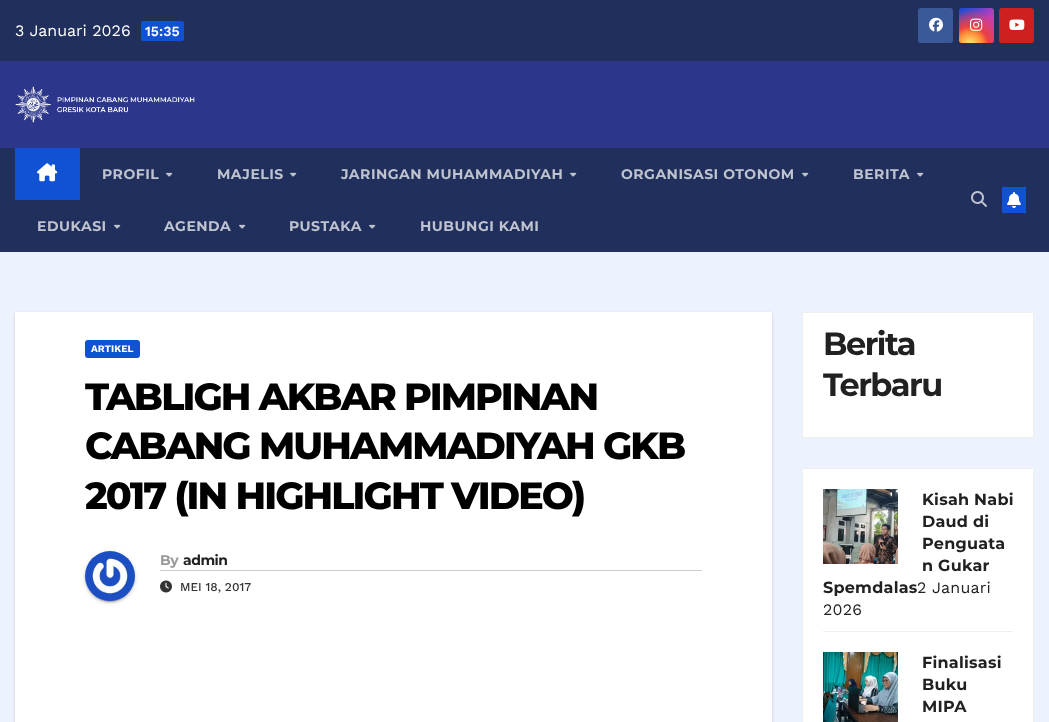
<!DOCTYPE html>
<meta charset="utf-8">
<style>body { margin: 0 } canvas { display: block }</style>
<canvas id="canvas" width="1049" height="722"></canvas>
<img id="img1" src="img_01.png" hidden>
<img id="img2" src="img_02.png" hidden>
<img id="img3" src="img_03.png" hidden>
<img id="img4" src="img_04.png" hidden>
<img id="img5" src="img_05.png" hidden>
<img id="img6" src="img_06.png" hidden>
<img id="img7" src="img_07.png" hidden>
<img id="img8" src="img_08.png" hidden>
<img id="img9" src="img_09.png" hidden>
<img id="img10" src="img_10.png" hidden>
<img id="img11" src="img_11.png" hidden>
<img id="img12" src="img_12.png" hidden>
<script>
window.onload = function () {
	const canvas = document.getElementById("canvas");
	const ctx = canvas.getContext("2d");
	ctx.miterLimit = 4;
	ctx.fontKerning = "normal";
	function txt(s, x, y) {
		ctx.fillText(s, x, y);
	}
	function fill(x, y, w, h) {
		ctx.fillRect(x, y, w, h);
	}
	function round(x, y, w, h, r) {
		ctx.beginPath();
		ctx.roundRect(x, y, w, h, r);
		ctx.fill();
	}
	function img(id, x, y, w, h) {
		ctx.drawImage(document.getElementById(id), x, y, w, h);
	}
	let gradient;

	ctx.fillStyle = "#EDF2FF";
	fill(0, 0, 1049, 722);
	ctx.fillStyle = "#202F5B";
	fill(0, 0, 1049, 61);
	ctx.fillStyle = "#1151D3";
	round(141, 21, 43, 20, 2);
	ctx.fillStyle = "#3B5998";
	round(918, 8, 35, 35, 3);
	img("img1", 929, 17, 14, 15);
	gradient = ctx.createLinearGradient(959, 8, 994, 43);
	gradient.addColorStop(0.12, "#234BD7");
	gradient.addColorStop(0.58, "#C33CBE");
	ctx.fillStyle = gradient;
	round(959, 8, 35, 35, 3);
	gradient = ctx.createRadialGradient(970, 45, 0, 970, 45, 44);
	gradient.addColorStop(0, "#FFE17D");
	gradient.addColorStop(0.1, "#FFCD69");
	gradient.addColorStop(0.28, "#FA9137");
	gradient.addColorStop(0.42, "#EB4141");
	gradient.addColorStop(0.82, "rgba(235, 65, 65, 0)");
	ctx.fillStyle = gradient;
	round(959, 8, 35, 35, 3);
	img("img2", 970, 18, 13, 13);
	ctx.fillStyle = "#CD201F";
	round(999, 8, 35, 35, 3);
	img("img3", 1009, 19, 16, 11);
	ctx.fillStyle = "#2C368B";
	fill(0, 61, 1049, 87);
	img("img4", 15, 86, 180, 37);
	ctx.fillStyle = "#202F5B";
	fill(0, 148, 1049, 104);
	ctx.fillStyle = "#1151D3";
	fill(15, 148, 65, 52);
	img("img5", 37, 163, 21, 19);
	img("img6", 166, 172, 7, 5);
	img("img6", 290, 172, 7, 5);
	img("img6", 570, 172, 7, 5);
	img("img6", 802, 172, 7, 5);
	img("img6", 917, 172, 7, 5);
	img("img6", 114, 224, 7, 5);
	img("img6", 239, 224, 7, 5);
	img("img6", 369, 224, 7, 5);
	img("img7", 971, 191, 16, 16);
	fill(1002, 187, 24, 26);
	img("img8", 1007, 192, 14, 16);
	ctx.fillStyle = "rgba(0, 0, 0, 0.15)";
	ctx.filter = "blur(1.5px)";
	ctx.beginPath();
	ctx.rect(15, 313, 757, 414);
	ctx.fill();
	ctx.filter = "none";
	ctx.fillStyle = "#FFFFFF";
	fill(15, 312, 757, 410);
	ctx.fillStyle = "#1151D3";
	round(85, 340, 55, 18, 3);
	ctx.fillStyle = "rgba(0, 0, 0, 0.12)";
	ctx.filter = "blur(2.5px)";
	ctx.beginPath();
	ctx.roundRect(85, 552, 50, 50, 25);
	ctx.fill();
	ctx.filter = "none";
	ctx.fillStyle = "rgba(0, 0, 0, 0.2)";
	ctx.filter = "blur(0.5px)";
	ctx.beginPath();
	ctx.roundRect(87, 556, 46, 46, 23);
	ctx.fill();
	ctx.filter = "none";
	ctx.fillStyle = "rgba(0, 0, 0, 0.14)";
	ctx.filter = "blur(1px)";
	ctx.beginPath();
	ctx.roundRect(85, 553, 50, 50, 25);
	ctx.fill();
	ctx.filter = "none";
	img("img9", 85, 551, 50, 50);
	ctx.fillStyle = "#CCCCCC";
	fill(160, 570, 542, 1);
	img("img10", 160, 580, 12, 13);
	ctx.fillStyle = "#FFFFFF";
	ctx.beginPath();
	ctx.rect(802.5, 312.5, 231, 125);
	ctx.fill();
	ctx.strokeStyle = "#EEEEEE";
	ctx.stroke();
	ctx.beginPath();
	ctx.rect(802.5, 468.5, 231, 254);
	ctx.fill();
	ctx.stroke();
	ctx.fillStyle = "#EEEEEE";
	fill(823, 631, 190, 1);
	img("img11", 823, 489, 75, 75);
	img("img12", 823, 652, 75, 70);
	ctx.font = "16px Work Sans";
	ctx.fillStyle = "#FFFFFF";
	txt("3 Januari 2026", 15, 36);
	ctx.font = "600 14px Work Sans";
	txt("15:35", 145, 36);
	ctx.letterSpacing = "0.5px";
	ctx.font = "bold 14px Montserrat";
	ctx.fillStyle = "#BEC3CF";
	txt("PROFIL", 102, 179);
	txt("MAJELIS", 217, 179);
	txt("JARINGAN MUHAMMADIYAH", 341, 179);
	txt("ORGANISASI OTONOM", 621, 179);
	txt("BERITA", 853, 179);
	txt("EDUKASI", 37, 231);
	txt("AGENDA", 164, 231);
	txt("PUSTAKA", 289, 231);
	txt("HUBUNGI KAMI", 420, 231);
	ctx.letterSpacing = "0px";
	ctx.font = "bold 10px Work Sans";
	ctx.fillStyle = "#FFFFFF";
	txt("ARTIKEL", 91, 352);
	ctx.letterSpacing = "-1.9px";
	ctx.font = "800 38px Montserrat";
	ctx.fillStyle = "#000000";
	txt("TABLIGH AKBAR PIMPINAN", 85, 410);
	txt("CABANG MUHAMMADIYAH GKB", 85, 459);
	txt("2017 (IN HIGHLIGHT VIDEO)", 85, 509);
	ctx.letterSpacing = "-0.5px";
	ctx.font = "bold 14px Montserrat";
	ctx.fillStyle = "#999999";
	txt("By", 160, 565);
	ctx.fillStyle = "#212121";
	txt("admin", 183, 565);
	ctx.letterSpacing = "0px";
	ctx.font = "500 12px Work Sans";
	ctx.fillStyle = "#333333";
	txt("MEI 18, 2017", 180, 591);
	ctx.letterSpacing = "-1.5px";
	ctx.font = "bold 32px Montserrat";
	ctx.fillStyle = "#212121";
	txt("Berita", 823, 355);
	txt("Terbaru", 823, 396);
	ctx.letterSpacing = "0.25px";
	ctx.font = "bold 16px Montserrat";
	txt("Kisah Nabi", 922, 505);
	txt("Daud di", 922, 527);
	txt("Penguata", 922, 549);
	txt("n Gukar", 922, 571);
	txt("Spemdalas", 823, 593);
	ctx.font = "16px Work Sans";
	txt("2 Januari", 917, 593);
	txt("2026", 823, 615);
	ctx.font = "bold 16px Montserrat";
	txt("Finalisasi", 922, 668);
	txt("Buku", 922, 690);
	txt("MIPA", 922, 712);
};
</script>
